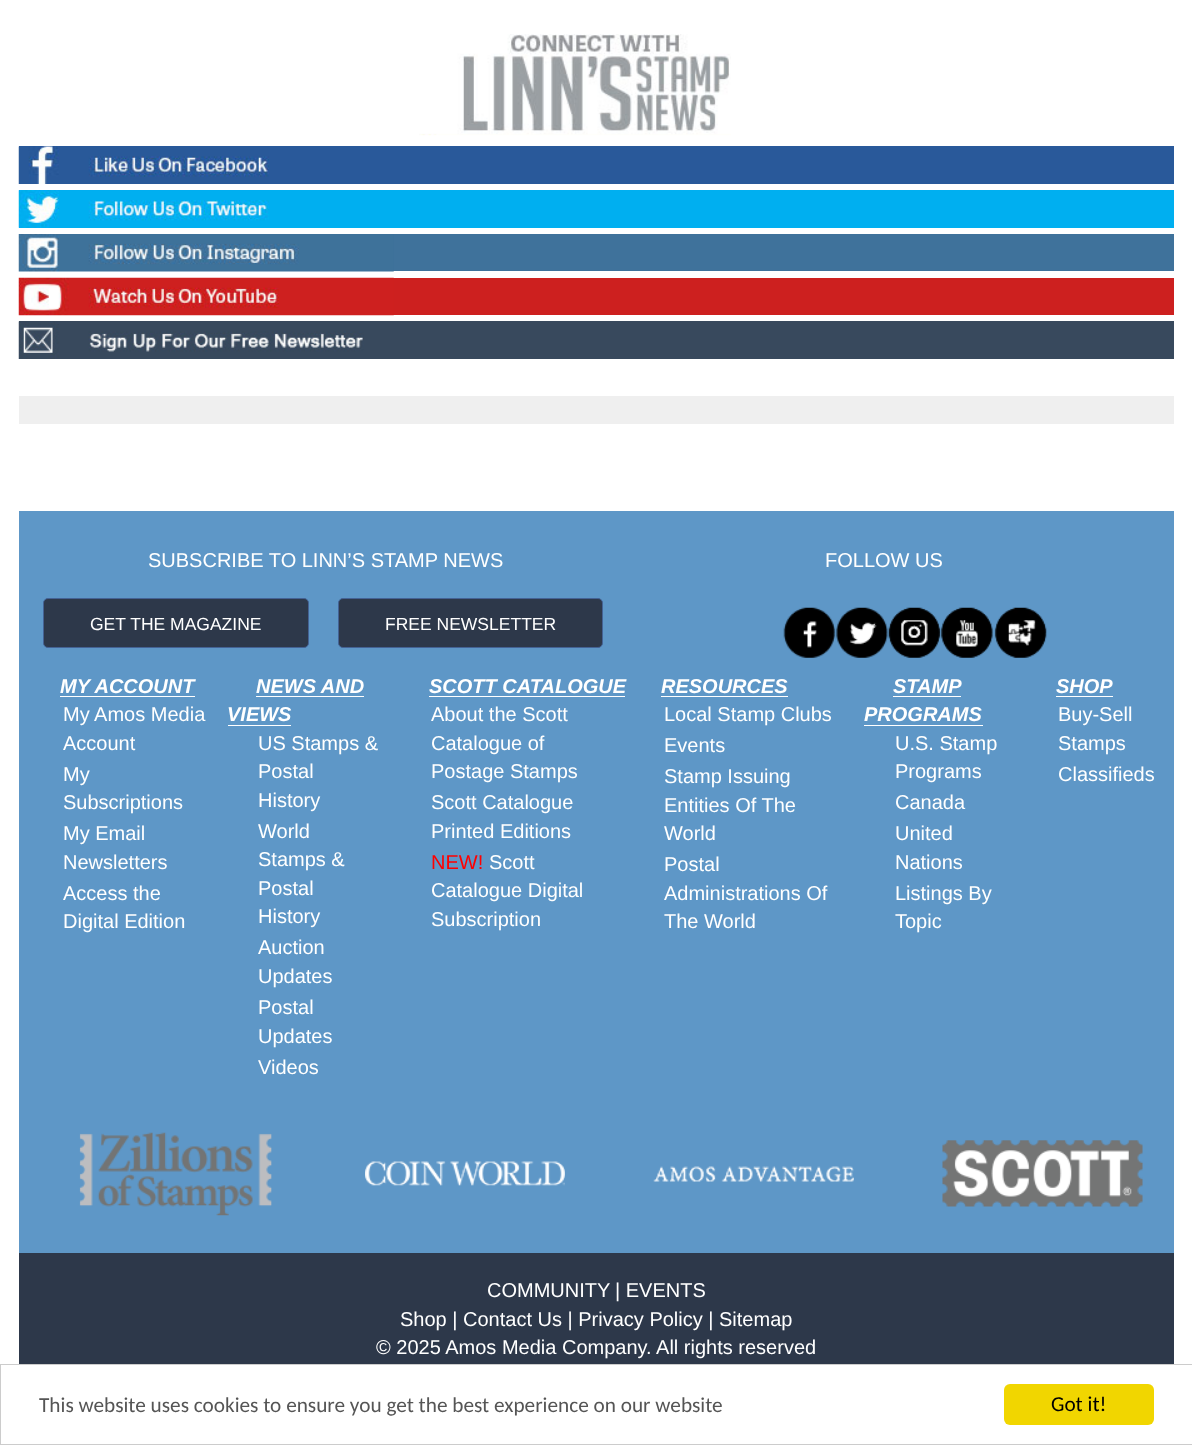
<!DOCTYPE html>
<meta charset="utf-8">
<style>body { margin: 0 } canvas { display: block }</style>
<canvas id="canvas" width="1192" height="1445"></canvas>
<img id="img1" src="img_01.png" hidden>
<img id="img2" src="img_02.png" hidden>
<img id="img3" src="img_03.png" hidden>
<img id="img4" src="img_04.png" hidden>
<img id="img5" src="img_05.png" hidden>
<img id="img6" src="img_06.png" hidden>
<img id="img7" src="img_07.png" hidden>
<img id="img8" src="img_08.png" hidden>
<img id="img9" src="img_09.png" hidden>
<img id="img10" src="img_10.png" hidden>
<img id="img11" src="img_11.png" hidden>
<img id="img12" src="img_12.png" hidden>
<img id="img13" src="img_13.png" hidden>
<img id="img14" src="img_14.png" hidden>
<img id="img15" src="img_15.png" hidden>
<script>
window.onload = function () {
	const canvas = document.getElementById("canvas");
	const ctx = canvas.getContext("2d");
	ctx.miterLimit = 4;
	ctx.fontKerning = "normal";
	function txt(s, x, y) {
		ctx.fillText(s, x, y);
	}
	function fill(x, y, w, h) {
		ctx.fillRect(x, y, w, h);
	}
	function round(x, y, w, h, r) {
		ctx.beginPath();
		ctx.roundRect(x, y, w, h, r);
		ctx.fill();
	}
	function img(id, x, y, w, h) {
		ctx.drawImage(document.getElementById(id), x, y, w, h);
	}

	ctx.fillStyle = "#FFFFFF";
	fill(0, 0, 1192, 1445);
	img("img1", 419, 34, 312, 102);
	ctx.fillStyle = "#29599A";
	fill(19, 146, 1155, 38);
	img("img2", 18, 146, 251, 38);
	ctx.fillStyle = "#00AFF0";
	fill(19, 190, 1155, 38);
	img("img3", 18, 190, 251, 38);
	ctx.fillStyle = "#3F729B";
	fill(393, 234, 781, 37);
	img("img4", 18, 234, 376, 38);
	ctx.fillStyle = "#CD201F";
	fill(393, 278, 781, 37);
	img("img5", 18, 277, 376, 39);
	ctx.fillStyle = "#38495D";
	fill(19, 321, 1155, 38);
	img("img6", 18, 321, 346, 38);
	ctx.fillStyle = "#EFEFEF";
	fill(19, 396, 1155, 28);
	ctx.fillStyle = "#5E97C7";
	fill(19, 511, 1155, 742);
	ctx.fillStyle = "#2D384A";
	ctx.beginPath();
	ctx.roundRect(43.5, 598.5, 265, 49, 4.5);
	ctx.fill();
	ctx.strokeStyle = "#446294";
	ctx.stroke();
	ctx.beginPath();
	ctx.roundRect(338.5, 598.5, 264, 49, 4.5);
	ctx.fill();
	ctx.stroke();
	img("img7", 783, 607, 53, 51);
	img("img8", 836, 607, 52, 51);
	img("img9", 888, 607, 53, 51);
	img("img10", 941, 607, 52, 51);
	img("img11", 994, 607, 53, 51);
	ctx.fillStyle = "#FFFFFF";
	fill(60, 696, 135, 1);
	fill(256, 696, 108, 1);
	fill(228, 725, 63, 1);
	fill(429, 696, 196, 1);
	fill(661, 696, 127, 1);
	fill(893, 696, 68, 1);
	fill(864, 725, 119, 1);
	fill(1056, 696, 57, 1);
	img("img12", 79, 1132, 193, 84);
	img("img13", 365, 1161, 200, 25);
	img("img14", 653, 1166, 201, 16);
	img("img15", 942, 1140, 201, 67);
	ctx.fillStyle = "#2D384A";
	fill(19, 1253, 1155, 111);
	ctx.strokeStyle = "#CCCCCC";
	ctx.strokeRect(0.5, 1364.5, 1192, 80);
	ctx.fillStyle = "#F1D600";
	round(1004, 1384, 150, 41, 6);
	ctx.font = "20px Liberation Sans";
	ctx.fillStyle = "#FFFFFF";
	txt("SUBSCRIBE TO LINN’S STAMP NEWS", 148, 567);
	ctx.font = "17.5px Liberation Sans";
	txt("GET THE MAGAZINE", 90, 630);
	txt("FREE NEWSLETTER", 385, 630);
	ctx.font = "20px Liberation Sans";
	txt("FOLLOW US", 825, 567);
	ctx.font = "italic bold 20px Liberation Sans";
	txt("MY ACCOUNT", 60, 693);
	ctx.font = "20px Liberation Sans";
	txt("My Amos Media", 63, 721);
	txt("Account", 63, 750);
	txt("My", 63, 781);
	txt("Subscriptions", 63, 809);
	txt("My Email", 63, 840);
	txt("Newsletters", 63, 869);
	txt("Access the", 63, 900);
	txt("Digital Edition", 63, 928);
	ctx.font = "italic bold 20px Liberation Sans";
	txt("NEWS AND", 256, 693);
	txt("VIEWS", 227, 721);
	ctx.font = "20px Liberation Sans";
	txt("US Stamps &", 258, 750);
	txt("Postal", 258, 778);
	txt("History", 258, 807);
	txt("World", 258, 838);
	txt("Stamps &", 258, 866);
	txt("Postal", 258, 895);
	txt("History", 258, 923);
	txt("Auction", 258, 954);
	txt("Updates", 258, 983);
	txt("Postal", 258, 1014);
	txt("Updates", 258, 1043);
	txt("Videos", 258, 1074);
	ctx.font = "italic bold 20px Liberation Sans";
	txt("SCOTT CATALOGUE", 429, 693);
	ctx.font = "20px Liberation Sans";
	txt("About the Scott", 431, 721);
	txt("Catalogue of", 431, 750);
	txt("Postage Stamps", 431, 778);
	txt("Scott Catalogue", 431, 809);
	txt("Printed Editions", 431, 838);
	ctx.fillStyle = "#FF0000";
	txt("NEW!", 431, 869);
	ctx.fillStyle = "#FFFFFF";
	txt("Scott", 489, 869);
	txt("Catalogue Digital", 431, 897);
	txt("Subscription", 431, 926);
	ctx.font = "italic bold 20px Liberation Sans";
	txt("RESOURCES", 661, 693);
	ctx.font = "20px Liberation Sans";
	txt("Local Stamp Clubs", 664, 721);
	txt("Events", 664, 752);
	txt("Stamp Issuing", 664, 783);
	txt("Entities Of The", 664, 812);
	txt("World", 664, 840);
	txt("Postal", 664, 871);
	txt("Administrations Of", 664, 900);
	txt("The World", 664, 928);
	ctx.font = "italic bold 20px Liberation Sans";
	txt("STAMP", 893, 693);
	txt("PROGRAMS", 864, 721);
	ctx.font = "20px Liberation Sans";
	txt("U.S. Stamp", 895, 750);
	txt("Programs", 895, 778);
	txt("Canada", 895, 809);
	txt("United", 895, 840);
	txt("Nations", 895, 869);
	txt("Listings By", 895, 900);
	txt("Topic", 895, 928);
	ctx.font = "italic bold 20px Liberation Sans";
	txt("SHOP", 1056, 693);
	ctx.font = "20px Liberation Sans";
	txt("Buy-Sell", 1058, 721);
	txt("Stamps", 1058, 750);
	txt("Classifieds", 1058, 781);
	txt("COMMUNITY", 487, 1297);
	txt("| EVENTS", 615, 1297);
	txt("Shop | Contact Us | Privacy Policy | Sitemap", 400, 1326);
	txt("© 2025 Amos Media Company. All rights reserved", 376, 1354);
	ctx.font = "21.25px Carlito";
	ctx.fillStyle = "#555555";
	txt("This website uses cookies to ensure you get the best experience on our website", 39, 1412);
	ctx.fillStyle = "#000000";
	txt("Got it!", 1051, 1411);
};
</script>
